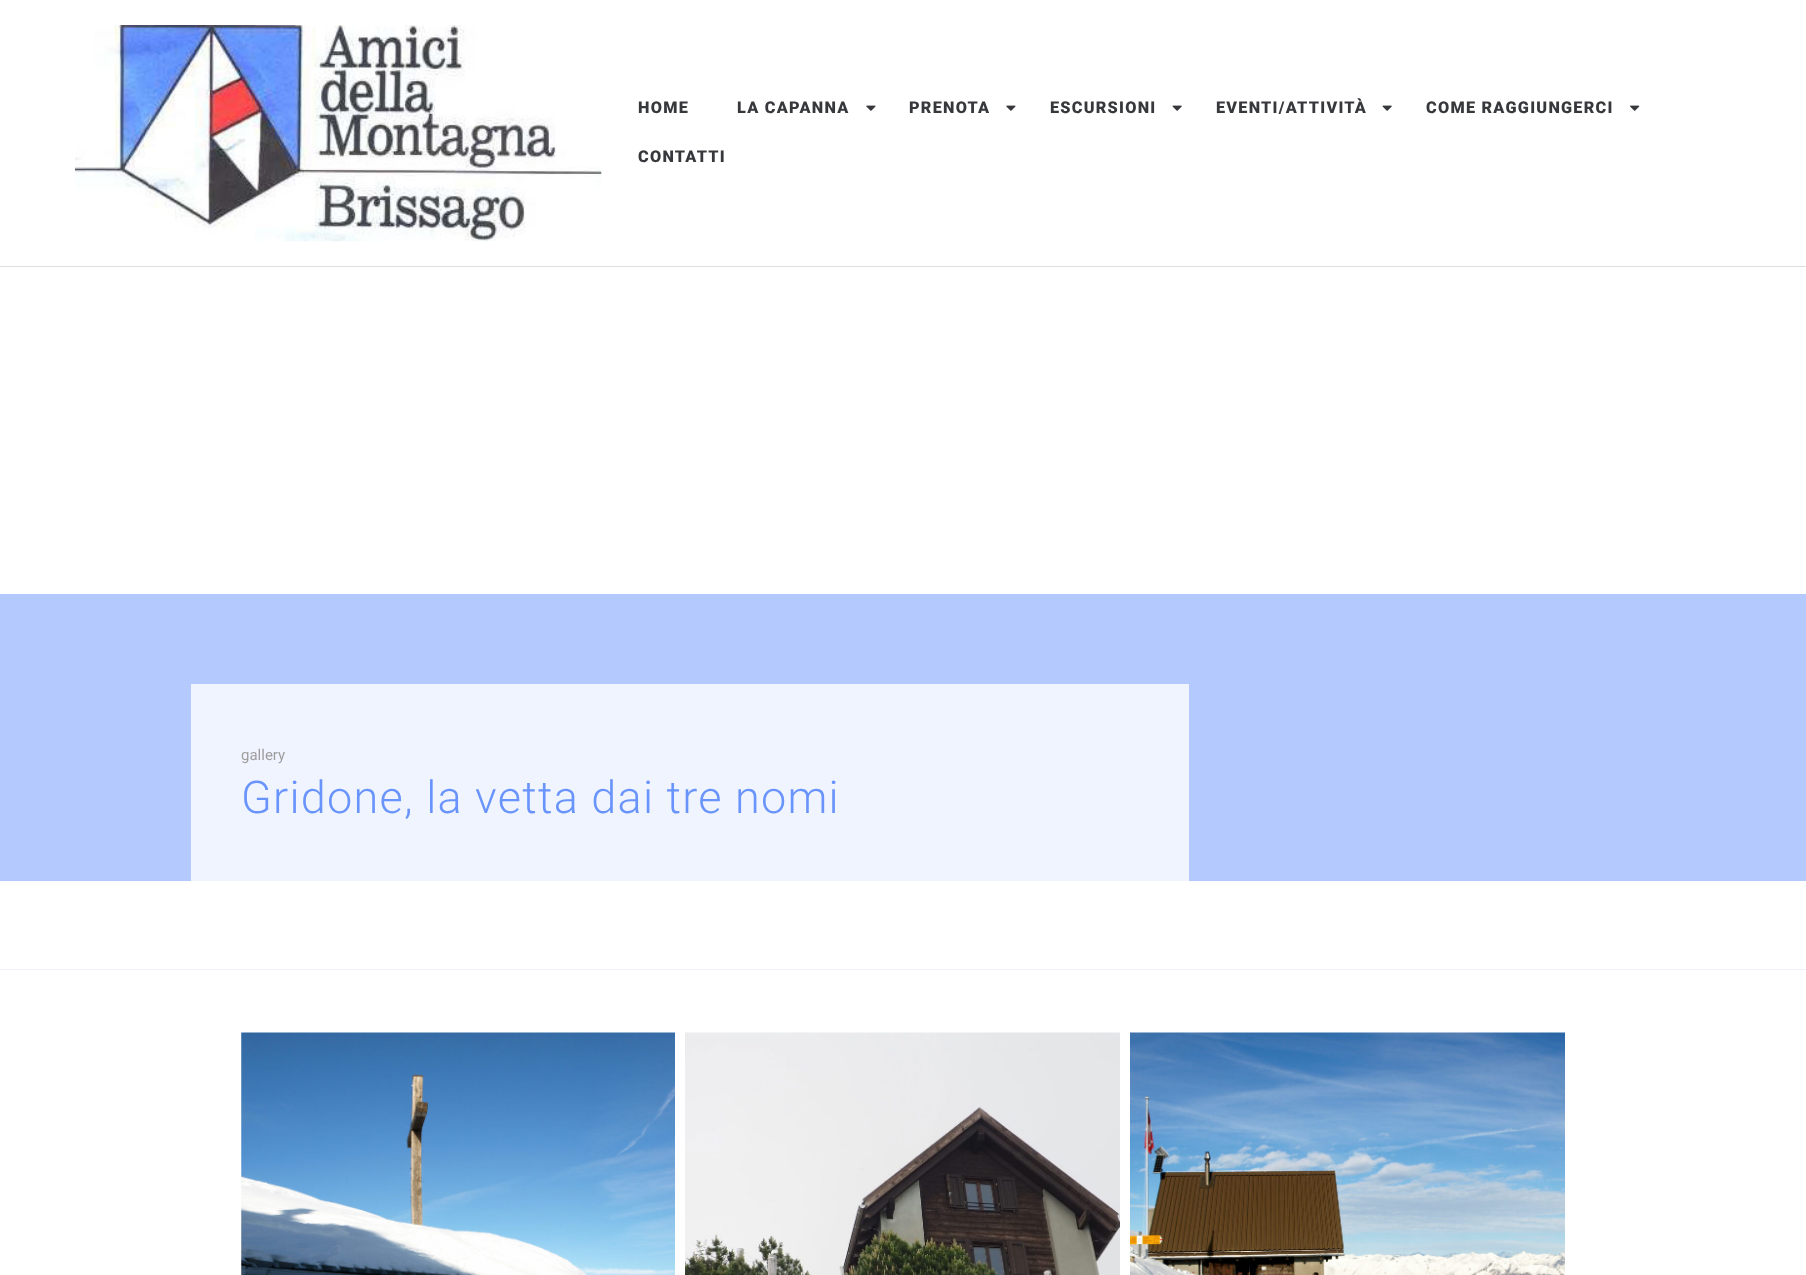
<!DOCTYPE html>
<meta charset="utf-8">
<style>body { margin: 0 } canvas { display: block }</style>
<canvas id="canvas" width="1806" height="1275"></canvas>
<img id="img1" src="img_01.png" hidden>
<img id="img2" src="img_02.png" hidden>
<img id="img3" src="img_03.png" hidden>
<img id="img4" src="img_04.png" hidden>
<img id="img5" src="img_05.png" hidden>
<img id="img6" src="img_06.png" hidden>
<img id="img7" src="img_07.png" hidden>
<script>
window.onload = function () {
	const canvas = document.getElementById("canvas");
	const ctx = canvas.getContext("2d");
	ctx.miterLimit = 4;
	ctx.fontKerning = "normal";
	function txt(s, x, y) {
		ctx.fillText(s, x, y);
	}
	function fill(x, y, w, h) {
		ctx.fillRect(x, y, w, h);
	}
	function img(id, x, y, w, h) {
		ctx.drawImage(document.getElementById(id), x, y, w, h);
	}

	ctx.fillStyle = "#FFFFFF";
	fill(0, 0, 1806, 1275);
	ctx.fillStyle = "#DDDDDD";
	fill(0, 266, 1806, 1);
	img("img1", 75, 25, 527, 217);
	img("img2", 866, 105, 10, 6);
	img("img2", 1006, 105, 10, 6);
	img("img3", 1172, 105, 10, 6);
	img("img3", 1382, 105, 10, 6);
	img("img4", 1630, 105, 10, 6);
	ctx.fillStyle = "#B4CAFE";
	fill(0, 594, 1806, 287);
	ctx.fillStyle = "#F0F4FF";
	fill(191, 684, 998, 197);
	ctx.fillStyle = "#EEF1F7";
	fill(0, 969, 1806, 1);
	img("img5", 241, 1032, 434, 243);
	img("img6", 685, 1032, 435, 243);
	img("img7", 1130, 1032, 435, 243);
	ctx.letterSpacing = "1.25px";
	ctx.font = "900 16.25px Roboto";
	ctx.fillStyle = "#37383C";
	txt("HOME", 638, 113);
	txt("LA CAPANNA", 737, 113);
	txt("PRENOTA", 909, 113);
	txt("ESCURSIONI", 1050, 113);
	txt("EVENTI/ATTIVITÀ", 1216, 113);
	txt("COME RAGGIUNGERCI", 1426, 113);
	txt("CONTATTI", 638, 162);
	ctx.letterSpacing = "0px";
	ctx.font = "15px Roboto";
	ctx.fillStyle = "#9E9E9E";
	txt("gallery", 241, 760);
	ctx.letterSpacing = "1.25px";
	ctx.font = "300 45px Roboto";
	ctx.fillStyle = "#6994FC";
	txt("Gridone, la vetta dai tre nomi", 241, 813);
};
</script>
